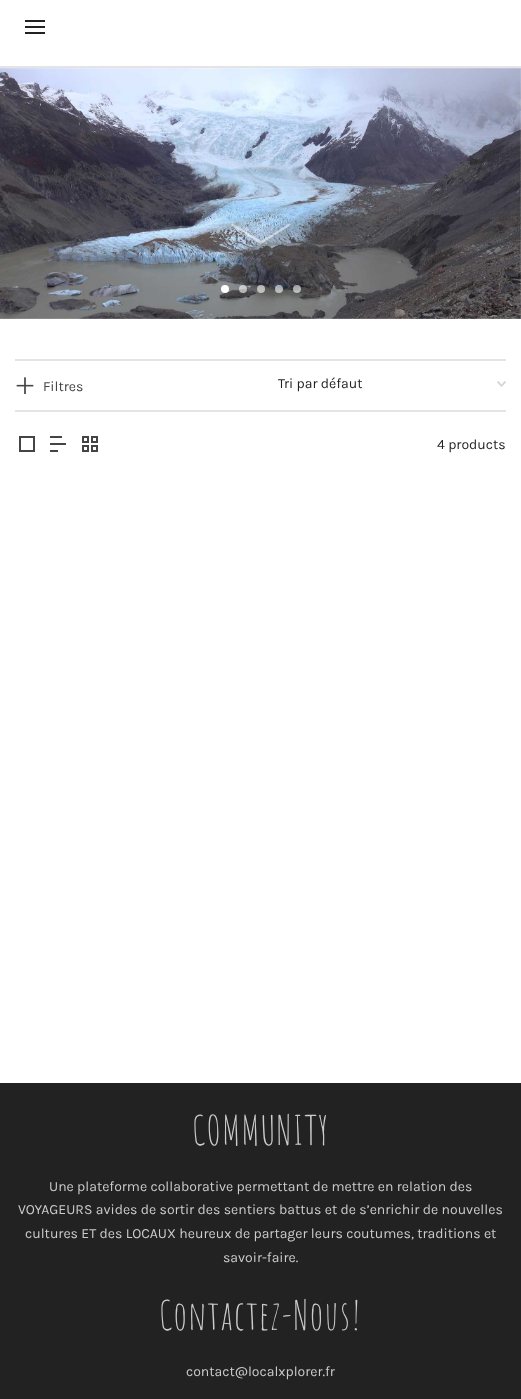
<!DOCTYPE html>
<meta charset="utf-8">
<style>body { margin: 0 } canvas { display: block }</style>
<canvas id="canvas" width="521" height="1399"></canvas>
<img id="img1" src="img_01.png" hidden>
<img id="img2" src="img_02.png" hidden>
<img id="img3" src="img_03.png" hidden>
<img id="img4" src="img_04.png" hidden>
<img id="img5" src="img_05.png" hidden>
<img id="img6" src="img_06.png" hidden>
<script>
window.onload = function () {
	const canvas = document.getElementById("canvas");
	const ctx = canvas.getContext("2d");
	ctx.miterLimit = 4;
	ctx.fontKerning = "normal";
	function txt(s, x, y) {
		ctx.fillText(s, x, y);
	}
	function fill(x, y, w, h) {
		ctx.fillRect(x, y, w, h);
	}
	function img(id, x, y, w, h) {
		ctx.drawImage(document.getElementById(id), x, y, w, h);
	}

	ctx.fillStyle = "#222222";
	fill(0, 0, 521, 1399);
	ctx.fillStyle = "#FFFFFF";
	fill(0, 0, 521, 66);
	ctx.fillStyle = "#E4E4E4";
	fill(0, 66, 521, 2);
	ctx.fillStyle = "#222222";
	fill(25, 26, 20, 2);
	fill(25, 20, 20, 2);
	fill(25, 32, 20, 2);
	ctx.fillStyle = "#FFFFFF";
	fill(0, 68, 521, 1015);
	img("img1", 0, 68, 521, 251);
	ctx.fillStyle = "rgba(255, 255, 255, 0.5)";
	ctx.beginPath();
	ctx.moveTo(291, 225);
	ctx.lineTo(290, 223);
	ctx.lineTo(261, 241);
	ctx.lineTo(232, 223);
	ctx.lineTo(231, 225);
	ctx.lineTo(261, 244);
	ctx.closePath();
	ctx.fill();
	ctx.fillStyle = "#FFFFFF";
	ctx.beginPath();
	ctx.arc(225, 289, 4, 0, Math.PI * 2);
	ctx.fill();
	ctx.fillStyle = "rgba(255, 255, 255, 0.6)";
	ctx.beginPath();
	ctx.arc(243, 289, 4, 0, Math.PI * 2);
	ctx.fill();
	ctx.beginPath();
	ctx.arc(261, 289, 4, 0, Math.PI * 2);
	ctx.fill();
	ctx.beginPath();
	ctx.arc(279, 289, 4, 0, Math.PI * 2);
	ctx.fill();
	ctx.beginPath();
	ctx.arc(297, 289, 4, 0, Math.PI * 2);
	ctx.fill();
	ctx.fillStyle = "#E4E4E4";
	fill(15, 359, 491, 2);
	fill(15, 410, 491, 2);
	img("img2", 16, 377, 18, 17);
	img("img3", 497, 381, 9, 6);
	img("img4", 19, 436, 16, 16);
	img("img5", 50, 436, 16, 16);
	img("img6", 82, 436, 16, 16);
	ctx.font = "14px Karla";
	ctx.fillStyle = "#444444";
	txt("Filtres", 43, 391);
	ctx.fillStyle = "#222222";
	txt("Tri par défaut", 278, 388);
	txt("4 products", 437, 449);
	ctx.letterSpacing = "1px";
	ctx.font = "40px Amatic SC";
	ctx.fillStyle = "#CCCCCC";
	txt("COMMUNITY", 192, 1145);
	ctx.letterSpacing = "0px";
	ctx.font = "14px Karla";
	txt("Une plateforme collaborative permettant de mettre en relation des", 49, 1191);
	txt("VOYAGEURS avides de sortir des sentiers battus et de s’enrichir de nouvelles", 18, 1214);
	txt("cultures ET des LOCAUX heureux de partager leurs coutumes, traditions et", 25, 1238);
	txt("savoir-faire.", 223, 1262);
	ctx.letterSpacing = "1px";
	ctx.font = "40px Amatic SC";
	txt("Contactez-Nous!", 159, 1330);
	ctx.letterSpacing = "0px";
	ctx.font = "14px Karla";
	txt("contact@localxplorer.fr", 186, 1376);
};
</script>
